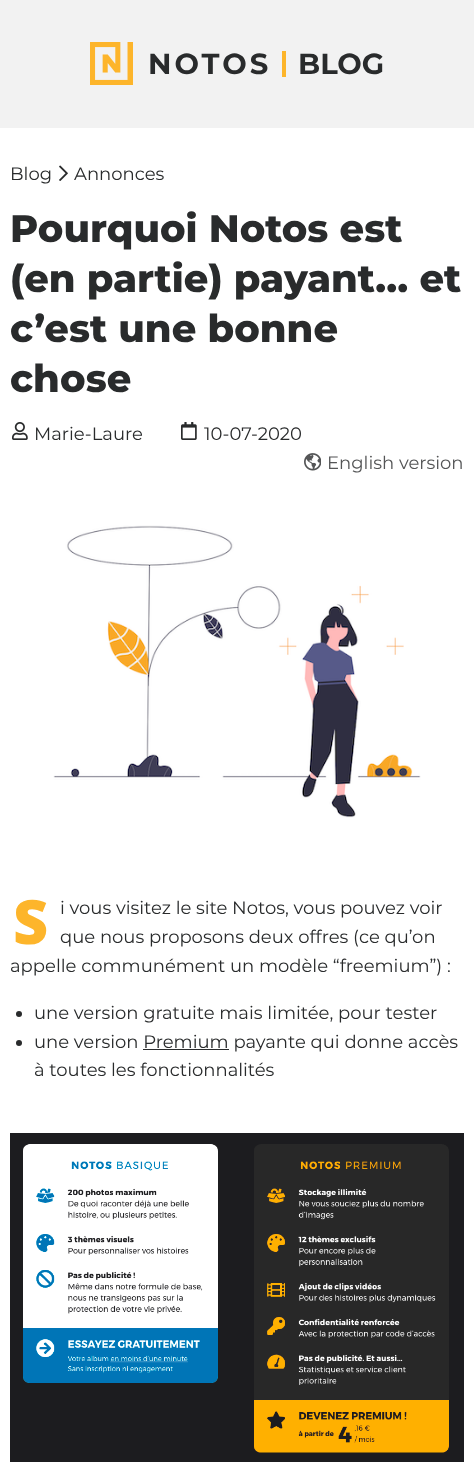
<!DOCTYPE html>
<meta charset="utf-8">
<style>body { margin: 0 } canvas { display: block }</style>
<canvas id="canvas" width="474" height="1475"></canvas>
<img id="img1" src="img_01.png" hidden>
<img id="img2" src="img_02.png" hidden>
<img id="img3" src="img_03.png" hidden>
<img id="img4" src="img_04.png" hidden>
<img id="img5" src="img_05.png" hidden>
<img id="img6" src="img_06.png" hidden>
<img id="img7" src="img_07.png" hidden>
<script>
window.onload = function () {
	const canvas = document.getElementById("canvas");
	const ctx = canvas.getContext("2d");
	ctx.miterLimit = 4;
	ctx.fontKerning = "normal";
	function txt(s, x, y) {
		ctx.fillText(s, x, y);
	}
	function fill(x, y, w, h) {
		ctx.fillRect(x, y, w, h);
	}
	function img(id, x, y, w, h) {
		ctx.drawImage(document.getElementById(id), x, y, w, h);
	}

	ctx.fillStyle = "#FFFFFF";
	fill(0, 0, 474, 1475);
	ctx.fillStyle = "#F2F2F2";
	fill(0, 0, 474, 128);
	img("img1", 90, 42, 43, 43);
	ctx.fillStyle = "#FDB52B";
	fill(282, 51, 4, 26);
	img("img2", 59, 165, 9, 16);
	img("img3", 12, 422, 16, 18);
	img("img4", 181, 422, 16, 18);
	img("img5", 304, 453, 17, 18);
	img("img6", 53, 525, 368, 293);
	ctx.fillStyle = "#292B2C";
	ctx.beginPath();
	ctx.arc(19, 1014, 3, 0, Math.PI * 2);
	ctx.fill();
	ctx.beginPath();
	ctx.arc(19, 1043, 3, 0, Math.PI * 2);
	ctx.fill();
	fill(143, 1049, 86, 1);
	img("img7", 10, 1133, 454, 329);
	ctx.letterSpacing = "3px";
	ctx.font = "bold 29px Montserrat";
	txt("NOTOS", 148, 74);
	ctx.letterSpacing = "0px";
	txt("BLOG", 298, 74);
	ctx.font = "18px Montserrat";
	txt("Blog", 10, 180);
	txt("Annonces", 74, 180);
	ctx.font = "800 38.4px Montserrat";
	txt("Pourquoi Notos est", 10, 242);
	txt("(en partie) payant… et", 10, 292);
	txt("c’est une bonne", 10, 342);
	txt("chose", 10, 392);
	ctx.font = "18px Montserrat";
	txt("Marie-Laure", 34, 440);
	txt("10-07-2020", 204, 440);
	ctx.fillStyle = "#545556";
	txt("English version", 327, 469);
	ctx.font = "900 61px Noto Sans";
	ctx.fillStyle = "#FDB52B";
	txt("S", 13, 944);
	ctx.font = "18px Montserrat";
	ctx.fillStyle = "#292B2C";
	txt("i vous visitez le site Notos, vous pouvez voir", 60, 914);
	txt("que nous proposons deux offres (ce qu’on", 60, 943);
	txt("appelle communément un modèle “freemium”) :", 10, 972);
	txt("une version gratuite mais limitée, pour tester", 34, 1019);
	txt("une version Premium payante qui donne accès", 34, 1048);
	txt("à toutes les fonctionnalités", 34, 1076);
};
</script>
